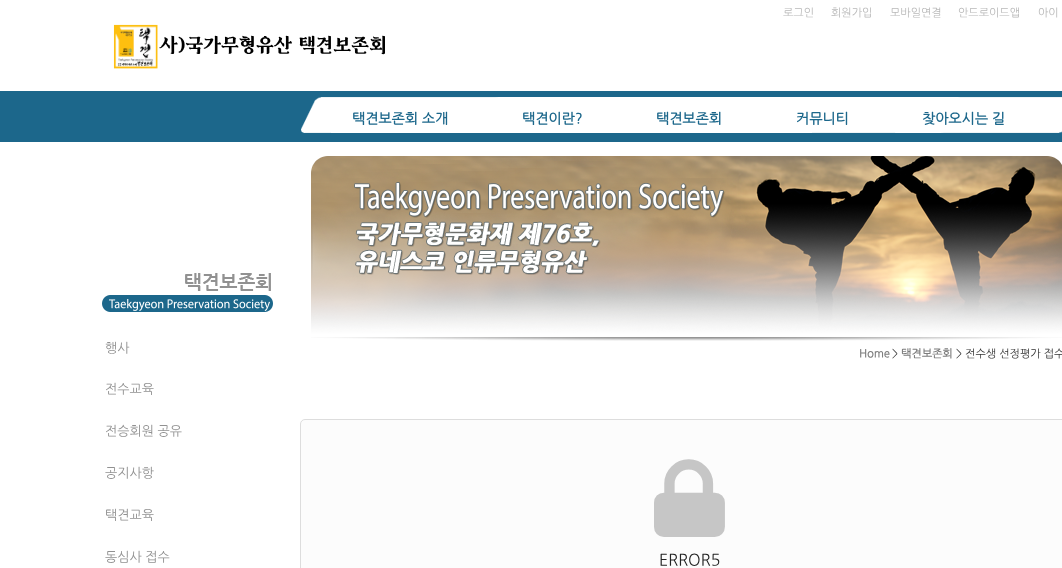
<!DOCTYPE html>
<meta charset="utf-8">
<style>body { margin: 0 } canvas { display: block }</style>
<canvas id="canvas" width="1062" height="568"></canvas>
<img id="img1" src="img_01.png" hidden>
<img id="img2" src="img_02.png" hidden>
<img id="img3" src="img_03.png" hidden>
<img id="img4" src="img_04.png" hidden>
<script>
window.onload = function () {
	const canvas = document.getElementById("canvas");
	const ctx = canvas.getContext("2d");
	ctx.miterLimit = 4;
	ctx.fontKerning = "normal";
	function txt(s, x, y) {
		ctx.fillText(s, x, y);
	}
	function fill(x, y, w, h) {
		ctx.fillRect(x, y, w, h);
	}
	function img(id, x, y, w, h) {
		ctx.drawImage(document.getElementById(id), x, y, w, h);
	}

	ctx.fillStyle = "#FFFFFF";
	fill(0, 0, 1062, 568);
	ctx.fillStyle = "#1C678B";
	fill(0, 91, 1062, 51);
	img("img1", 113, 24, 272, 45);
	img("img2", 301, 97, 761, 36);
	img("img3", 102, 273, 171, 39);
	img("img4", 311, 156, 751, 185);
	ctx.fillStyle = "#FCFCFC";
	ctx.beginPath();
	ctx.roundRect(300.5, 419.5, 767, 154, 4.5);
	ctx.fill();
	ctx.strokeStyle = "#DDDDDD";
	ctx.stroke();
	ctx.font = "11px NanumGothic";
	ctx.fillStyle = "#B8B8B8";
	txt("로그인", 783, 16);
	txt("회원가입", 831, 16);
	txt("모바일연결", 890, 16);
	txt("안드로이드앱", 958, 16);
	txt("아이", 1038, 16);
	ctx.font = "bold 14px NanumGothic";
	ctx.fillStyle = "#1C678B";
	txt("택견보존회 소개", 352, 123);
	txt("택견이란?", 522, 123);
	txt("택견보존회", 656, 123);
	txt("커뮤니티", 796, 123);
	txt("찾아오시는 길", 922, 123);
	ctx.font = "13px NanumGothic";
	ctx.fillStyle = "#919191";
	txt("행사", 105, 352);
	txt("전수교육", 105, 393);
	txt("전승회원 공유", 105, 435);
	txt("공지사항", 105, 477);
	txt("택견교육", 105, 519);
	txt("동심사 접수", 105, 561);
	ctx.font = "bold 11px NanumGothic";
	ctx.fillStyle = "#7D7D7D";
	txt("Home", 859, 357);
	ctx.font = "11px NanumGothic";
	ctx.fillStyle = "#333333";
	txt(">", 892, 357);
	ctx.font = "bold 11px NanumGothic";
	ctx.fillStyle = "#7D7D7D";
	txt("택견보존회", 901, 357);
	ctx.font = "11px NanumGothic";
	ctx.fillStyle = "#333333";
	txt("> 전수생 선정평가 접수", 956, 357);
	ctx.font = "120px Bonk";
	ctx.fillStyle = "#C6C6C6";
	txt("l", 652, 527);
	ctx.font = "16px NanumGothic";
	ctx.fillStyle = "#222222";
	txt("ERROR5", 659, 565);
};
</script>
